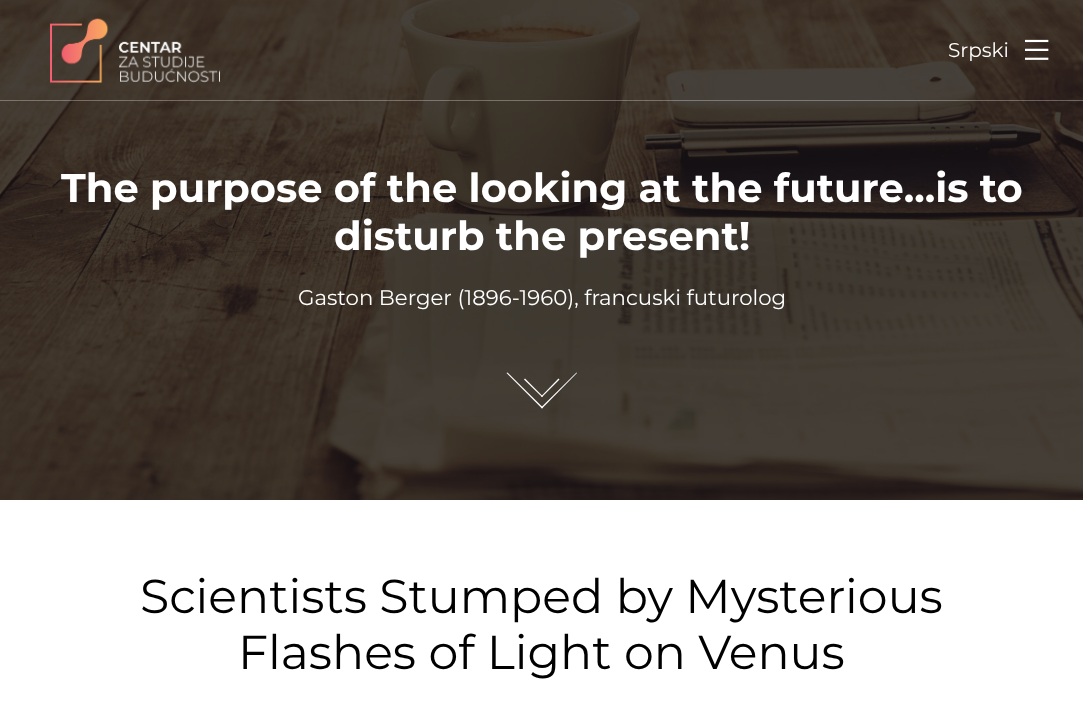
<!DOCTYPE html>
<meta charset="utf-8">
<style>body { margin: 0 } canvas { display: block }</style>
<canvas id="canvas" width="1083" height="718"></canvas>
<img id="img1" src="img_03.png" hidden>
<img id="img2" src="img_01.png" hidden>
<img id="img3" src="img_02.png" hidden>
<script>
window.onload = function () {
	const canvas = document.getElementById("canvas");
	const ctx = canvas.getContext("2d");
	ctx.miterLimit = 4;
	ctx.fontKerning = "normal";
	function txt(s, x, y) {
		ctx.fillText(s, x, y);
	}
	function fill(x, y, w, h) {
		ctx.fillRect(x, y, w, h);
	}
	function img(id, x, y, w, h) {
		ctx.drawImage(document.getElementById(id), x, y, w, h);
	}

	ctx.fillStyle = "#FFFFFF";
	fill(0, 0, 1083, 718);
	img("img1", 0, 0, 1083, 500);
	img("img2", 50, 18, 170, 65);
	img("img3", 1025, 39, 24, 21);
	ctx.fillStyle = "rgba(255, 255, 255, 0.3)";
	fill(0, 100, 1083, 1);
	ctx.fillStyle = "#FFFFFF";
	ctx.beginPath();
	ctx.moveTo(576.5, 372.5);
	ctx.lineTo(577, 373);
	ctx.lineTo(542, 408.5);
	ctx.lineTo(541, 407.5);
	ctx.closePath();
	ctx.fill();
	ctx.beginPath();
	ctx.moveTo(507.5, 372.5);
	ctx.lineTo(543, 407.5);
	ctx.lineTo(542, 408.5);
	ctx.lineTo(506.5, 373);
	ctx.closePath();
	ctx.fill();
	ctx.beginPath();
	ctx.moveTo(558.5, 378.5);
	ctx.lineTo(559.5, 379.5);
	ctx.lineTo(542, 397);
	ctx.lineTo(541, 396.5);
	ctx.closePath();
	ctx.fill();
	ctx.beginPath();
	ctx.moveTo(525, 378.5);
	ctx.lineTo(543, 396.5);
	ctx.lineTo(542, 397);
	ctx.lineTo(524, 379.5);
	ctx.closePath();
	ctx.fill();
	ctx.font = "20px Montserrat";
	txt("Srpski", 948, 57);
	ctx.font = "bold 40px Montserrat";
	txt("The purpose of the looking at the future...is to", 61, 202);
	txt("disturb the present!", 334, 250);
	ctx.font = "21.25px Montserrat";
	txt("Gaston Berger (1896-1960), francuski futurolog", 298, 305);
	ctx.font = "47.5px Montserrat";
	ctx.fillStyle = "#000000";
	txt("Scientists Stumped by Mysterious", 140, 613);
	txt("Flashes of Light on Venus", 238, 669);
};
</script>
